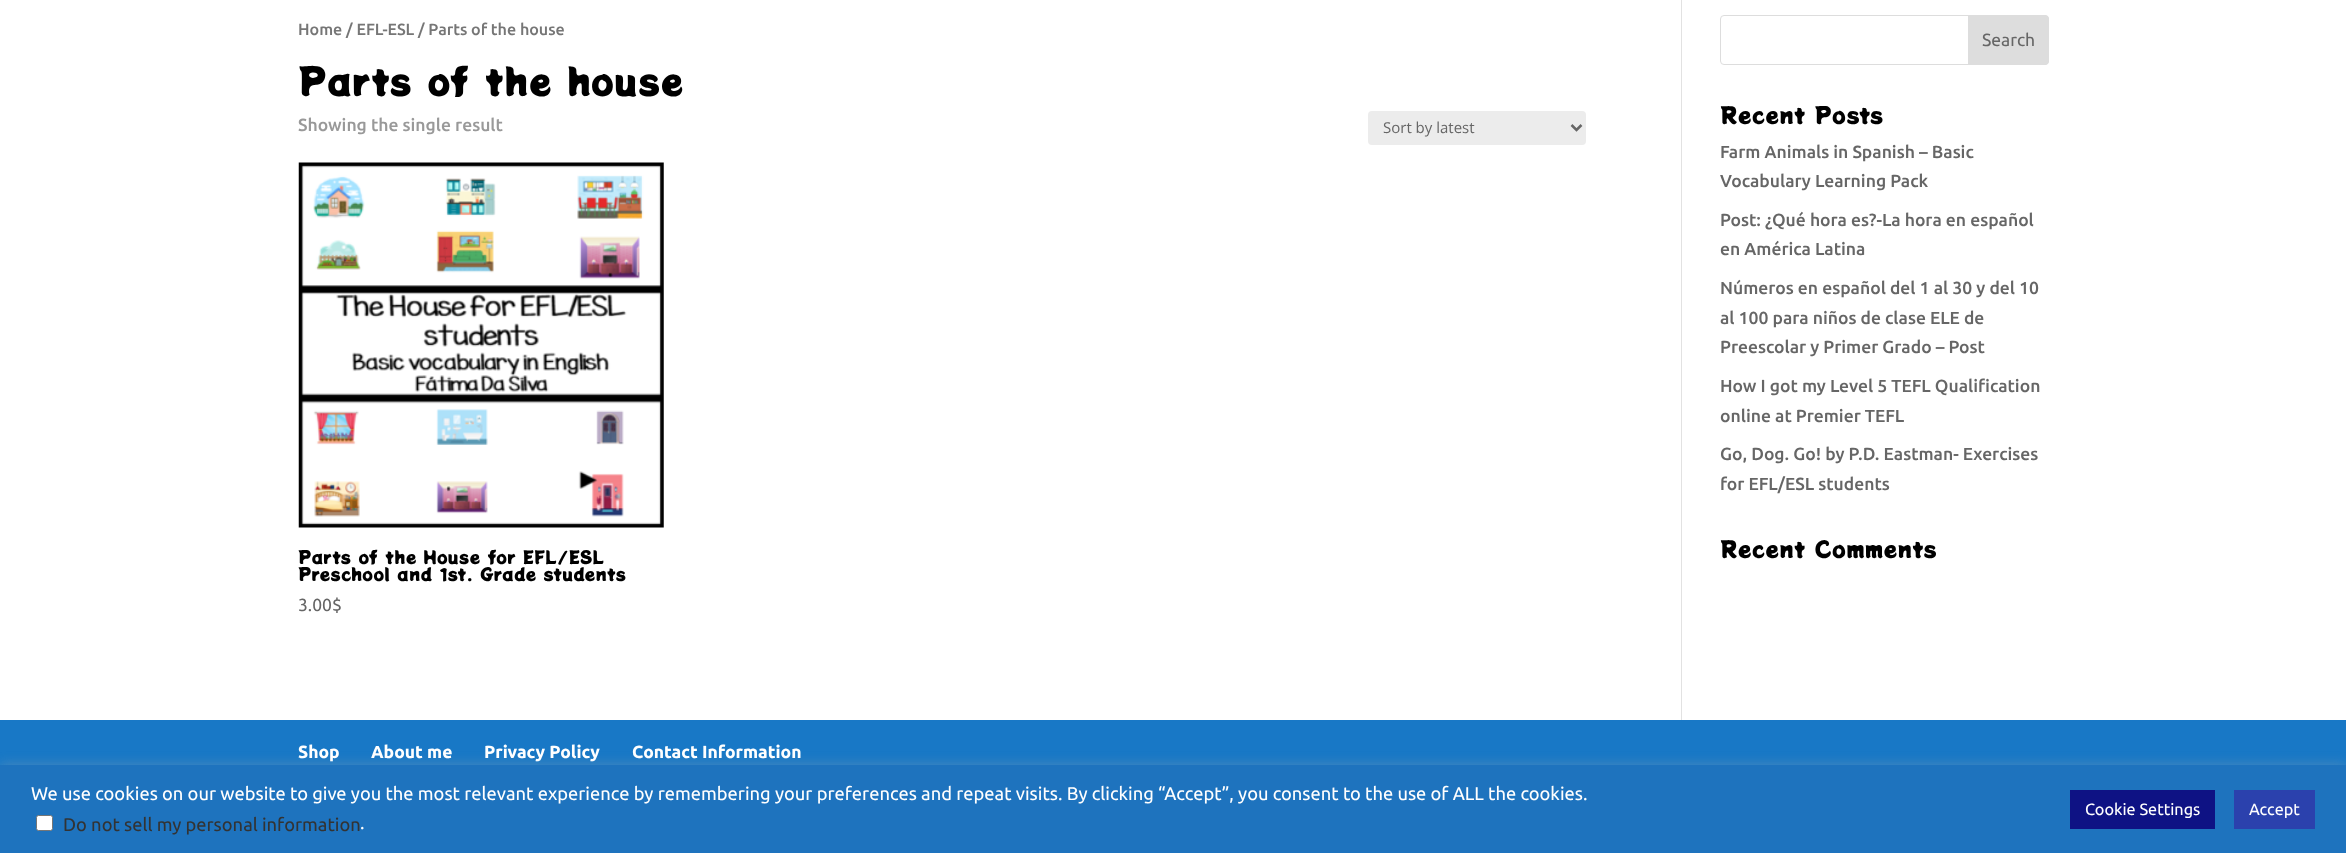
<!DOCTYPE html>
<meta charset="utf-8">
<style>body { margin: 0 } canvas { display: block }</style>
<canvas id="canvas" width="2346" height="853"></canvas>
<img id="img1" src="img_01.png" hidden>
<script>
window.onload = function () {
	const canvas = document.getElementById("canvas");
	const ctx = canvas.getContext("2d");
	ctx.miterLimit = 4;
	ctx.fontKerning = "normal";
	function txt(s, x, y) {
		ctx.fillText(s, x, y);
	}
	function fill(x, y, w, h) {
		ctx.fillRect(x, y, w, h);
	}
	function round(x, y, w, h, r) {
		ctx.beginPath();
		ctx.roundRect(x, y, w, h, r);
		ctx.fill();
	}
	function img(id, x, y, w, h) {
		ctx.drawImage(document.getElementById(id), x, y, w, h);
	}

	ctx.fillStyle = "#FFFFFF";
	fill(0, 0, 2346, 853);
	ctx.fillStyle = "#E2E2E2";
	fill(1681, 0, 1, 720);
	ctx.fillStyle = "#ECECEC";
	round(1368, 111, 218, 34, 4);
	ctx.beginPath();
	ctx.moveTo(1571.5, 125);
	ctx.lineTo(1576.5, 130);
	ctx.lineTo(1581.5, 125);
	ctx.strokeStyle = "#666666";
	ctx.lineWidth = 2.5;
	ctx.stroke();
	img("img1", 298, 162, 366, 366);
	ctx.beginPath();
	ctx.roundRect(1720.5, 15.5, 328, 49, 3.5);
	ctx.strokeStyle = "#DDDDDD";
	ctx.lineWidth = 1;
	ctx.stroke();
	ctx.fillStyle = "#DDDDDD";
	ctx.beginPath();
	ctx.roundRect(1968.5, 15.5, 80, 49, [0, 3.5, 3.5, 0]);
	ctx.fill();
	ctx.stroke();
	ctx.fillStyle = "#1878C6";
	fill(0, 720, 2346, 45);
	ctx.fillStyle = "rgba(172, 171, 171, 0.3)";
	ctx.filter = "blur(6px)";
	ctx.beginPath();
	ctx.rect(0, 764, 2346, 89);
	ctx.fill();
	ctx.filter = "none";
	ctx.fillStyle = "#1E73BE";
	fill(0, 765, 2346, 88);
	ctx.fillStyle = "#FFFFFF";
	ctx.beginPath();
	ctx.roundRect(36.5, 815.5, 16, 15, 2);
	ctx.fill();
	ctx.strokeStyle = "#767676";
	ctx.stroke();
	ctx.fillStyle = "#0E1284";
	fill(2070, 790, 145, 39);
	ctx.fillStyle = "#2B41AD";
	fill(2234, 790, 81, 39);
	ctx.font = "500 16.1px Ubuntu";
	ctx.fillStyle = "#767676";
	txt("Home / EFL-ESL / Parts of the house", 298, 35);
	ctx.font = "37.5px Potta One";
	ctx.fillStyle = "#000000";
	txt("Parts of the house", 298, 96);
	ctx.font = "500 17.5px Ubuntu";
	ctx.fillStyle = "#999999";
	txt("Showing the single result", 298, 131);
	ctx.font = "15px Open Sans";
	ctx.fillStyle = "#666666";
	txt("Sort by latest", 1383, 133);
	ctx.font = "17.5px Potta One";
	ctx.fillStyle = "#000000";
	txt("Parts of the House for EFL/ESL", 298, 564);
	txt("Preschool and 1st. Grade students", 298, 581);
	ctx.font = "17.5px Ubuntu";
	ctx.fillStyle = "#666666";
	txt("3.00$", 298, 611);
	txt("Search", 1982, 46);
	ctx.font = "22.5px Potta One";
	ctx.fillStyle = "#000000";
	txt("Recent Posts", 1720, 124);
	ctx.font = "500 17.5px Ubuntu";
	ctx.fillStyle = "#666666";
	txt("Farm Animals in Spanish – Basic", 1720, 158);
	txt("Vocabulary Learning Pack", 1720, 187);
	txt("Post: ¿Qué hora es?-La hora en español", 1720, 226);
	txt("en América Latina", 1720, 255);
	txt("Números en español del 1 al 30 y del 10", 1720, 294);
	txt("al 100 para niños de clase ELE de", 1720, 324);
	txt("Preescolar y Primer Grado – Post", 1720, 353);
	txt("How I got my Level 5 TEFL Qualification", 1720, 392);
	txt("online at Premier TEFL", 1720, 422);
	txt("Go, Dog. Go! by P.D. Eastman- Exercises", 1720, 460);
	txt("for EFL/ESL students", 1720, 490);
	ctx.font = "22.5px Potta One";
	ctx.fillStyle = "#000000";
	txt("Recent Comments", 1720, 558);
	ctx.font = "bold 17.5px Ubuntu";
	ctx.fillStyle = "#FFFFFF";
	txt("Shop", 298, 758);
	txt("About me", 371, 758);
	txt("Privacy Policy", 484, 758);
	txt("Contact Information", 632, 758);
	ctx.font = "18.33px Ubuntu";
	txt("We use cookies on our website to give you the most relevant experience by remembering your preferences and repeat visits. By clicking “Accept”, you consent to the use of ALL the cookies.", 31, 800);
	ctx.fillStyle = "#333333";
	txt("Do not sell my personal information", 63, 831);
	ctx.fillStyle = "#FFFFFF";
	txt(".", 360, 829);
	ctx.font = "16.25px Ubuntu";
	txt("Cookie Settings", 2085, 815);
	txt("Accept", 2249, 815);
};
</script>
